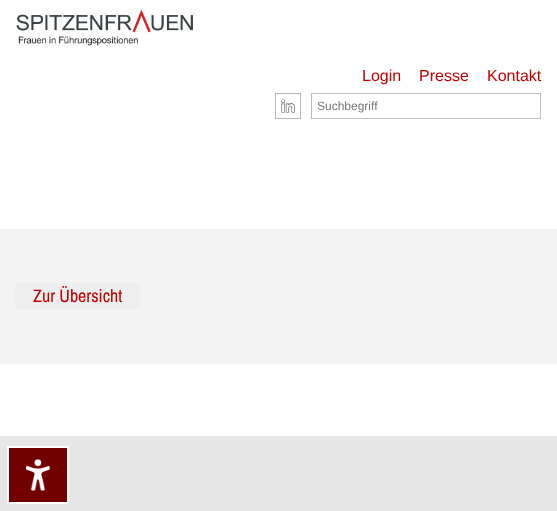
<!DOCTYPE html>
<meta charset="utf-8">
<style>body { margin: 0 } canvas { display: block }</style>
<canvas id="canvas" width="557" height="511"></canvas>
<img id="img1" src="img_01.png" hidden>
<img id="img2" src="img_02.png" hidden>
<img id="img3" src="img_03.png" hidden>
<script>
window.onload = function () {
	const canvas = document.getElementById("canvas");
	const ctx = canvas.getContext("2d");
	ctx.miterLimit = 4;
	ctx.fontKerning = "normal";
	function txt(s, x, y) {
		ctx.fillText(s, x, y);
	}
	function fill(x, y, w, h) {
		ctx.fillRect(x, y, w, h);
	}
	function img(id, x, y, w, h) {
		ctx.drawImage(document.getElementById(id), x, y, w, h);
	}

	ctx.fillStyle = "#FFFFFF";
	fill(0, 0, 557, 511);
	img("img1", 16, 8, 177, 39);
	img("img2", 275, 93, 26, 26);
	ctx.fillStyle = "#BBBBBB";
	fill(311, 93, 230, 1);
	ctx.fillStyle = "#C0C0C0";
	fill(540, 93, 1, 26);
	fill(311, 118, 230, 1);
	ctx.fillStyle = "#BBBBBB";
	fill(311, 93, 1, 26);
	ctx.fillStyle = "#F3F3F3";
	fill(0, 229, 557, 135);
	ctx.fillStyle = "#EEEEEE";
	fill(15, 283, 125, 26);
	ctx.fillStyle = "#E6E6E6";
	fill(0, 436, 557, 75);
	ctx.fillStyle = "#720000";
	ctx.beginPath();
	ctx.rect(8, 447, 60, 56);
	ctx.fill();
	ctx.strokeStyle = "#FFFFFF";
	ctx.lineWidth = 2;
	ctx.stroke();
	img("img3", 26, 459, 24, 32);
	ctx.font = "16px Liberation Sans";
	ctx.fillStyle = "#C00000";
	txt("Login", 362, 81);
	txt("Presse", 419, 81);
	txt("Kontakt", 487, 81);
	ctx.font = "12px Liberation Sans";
	ctx.fillStyle = "#757575";
	txt("Suchbegriff", 317, 110);
	ctx.font = "18px Archivo Narrow";
	ctx.fillStyle = "#C00000";
	txt("Zur Übersicht", 33, 302);
};
</script>
